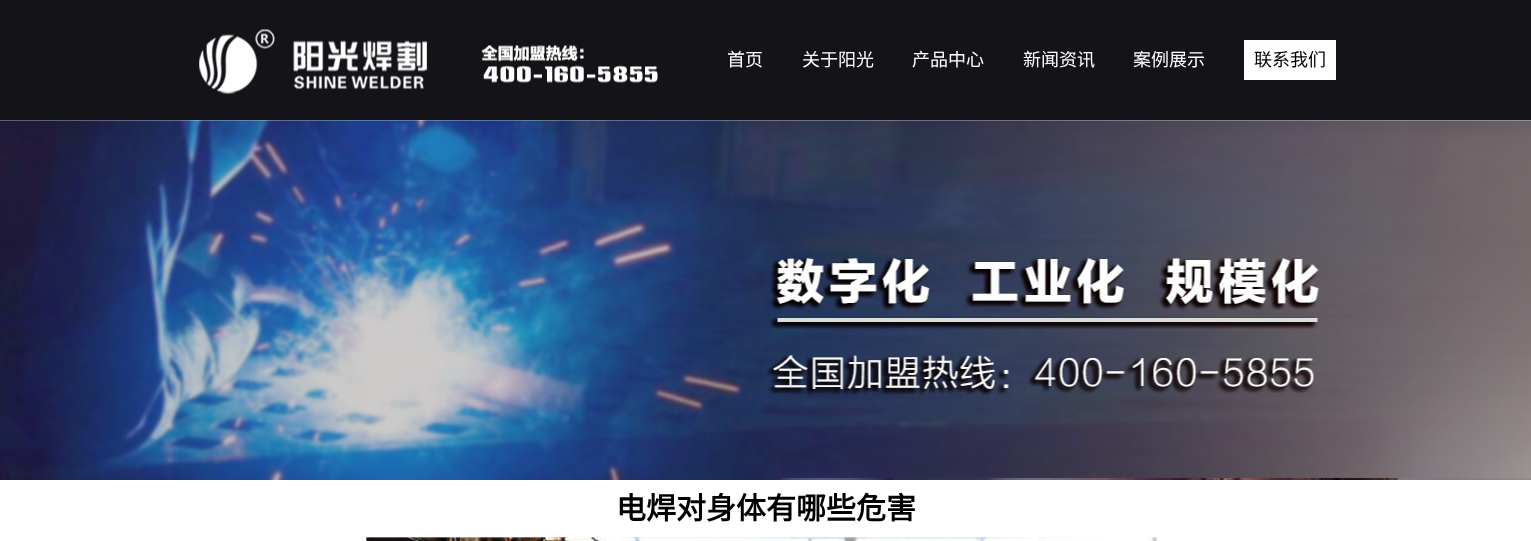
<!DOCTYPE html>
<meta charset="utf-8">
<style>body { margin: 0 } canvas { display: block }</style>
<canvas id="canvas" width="1531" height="541"></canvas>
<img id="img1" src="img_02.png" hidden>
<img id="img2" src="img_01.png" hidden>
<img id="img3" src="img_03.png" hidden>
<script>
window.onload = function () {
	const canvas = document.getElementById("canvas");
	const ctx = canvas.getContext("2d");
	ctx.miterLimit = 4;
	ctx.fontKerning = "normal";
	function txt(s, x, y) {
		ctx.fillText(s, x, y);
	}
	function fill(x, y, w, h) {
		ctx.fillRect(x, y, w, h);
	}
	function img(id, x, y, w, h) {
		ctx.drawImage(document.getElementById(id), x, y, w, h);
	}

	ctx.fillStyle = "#FFFFFF";
	fill(0, 0, 1531, 541);
	img("img1", 0, 120, 1531, 360);
	ctx.fillStyle = "rgba(255, 255, 255, 0.3)";
	fill(0, 120, 1531, 1);
	ctx.fillStyle = "#141317";
	fill(0, 0, 1531, 120);
	img("img2", 199, 29, 459, 65);
	ctx.fillStyle = "#FFFFFF";
	fill(1244, 40, 92, 40);
	img("img3", 366, 537, 794, 4);
	ctx.font = "18px Noto Sans CJK SC";
	txt("首页", 727, 66);
	txt("关于阳光", 802, 66);
	txt("产品中心", 912, 66);
	txt("新闻资讯", 1023, 66);
	txt("案例展示", 1133, 66);
	ctx.fillStyle = "#000000";
	txt("联系我们", 1254, 66);
	ctx.font = "bold 30px Noto Sans CJK SC";
	txt("电焊对身体有哪些危害", 616, 519);
};
</script>
